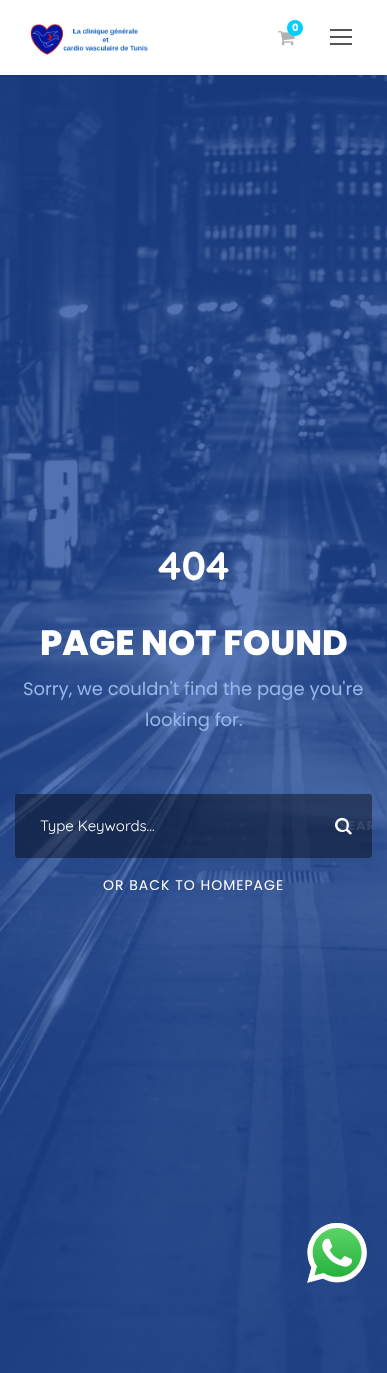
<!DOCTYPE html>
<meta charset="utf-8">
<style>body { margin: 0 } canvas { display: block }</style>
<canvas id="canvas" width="387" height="1373"></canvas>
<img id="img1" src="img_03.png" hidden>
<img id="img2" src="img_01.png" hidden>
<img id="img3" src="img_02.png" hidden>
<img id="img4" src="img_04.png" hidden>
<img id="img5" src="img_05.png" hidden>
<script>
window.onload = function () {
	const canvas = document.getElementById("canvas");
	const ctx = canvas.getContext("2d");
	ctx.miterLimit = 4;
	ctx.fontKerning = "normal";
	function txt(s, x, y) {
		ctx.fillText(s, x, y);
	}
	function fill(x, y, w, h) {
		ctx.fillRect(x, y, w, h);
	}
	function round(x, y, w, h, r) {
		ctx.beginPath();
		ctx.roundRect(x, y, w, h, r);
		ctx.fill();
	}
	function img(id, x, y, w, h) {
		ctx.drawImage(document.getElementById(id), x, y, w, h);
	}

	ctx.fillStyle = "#FFFFFF";
	fill(0, 0, 387, 1373);
	ctx.fillStyle = "#17449E";
	fill(0, 75, 387, 1298);
	img("img1", 0, 75, 387, 1298);
	ctx.save();
	ctx.beginPath();
	ctx.rect(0, 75, 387, 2);
	ctx.clip();
	ctx.fillStyle = "rgba(0, 0, 0, 0.1)";
	ctx.filter = "blur(1px)";
	ctx.beginPath();
	ctx.rect(0, 1, 387, 75);
	ctx.fill();
	ctx.filter = "none";
	ctx.restore();
	img("img2", 30, 23, 118, 32);
	img("img3", 278, 31, 17, 15);
	ctx.fillStyle = "#00CEFF";
	ctx.beginPath();
	ctx.arc(295, 28, 8, 0, Math.PI * 2);
	ctx.fill();
	ctx.fillStyle = "#545454";
	fill(330, 29, 22, 2);
	fill(330, 36, 22, 2);
	fill(330, 43, 22, 2);
	ctx.fillStyle = "rgba(0, 0, 0, 0.4)";
	round(15, 794, 357, 64, 3);
	img("img4", 335, 817, 17, 18);
	img("img5", 307, 1223, 60, 60);
	ctx.font = "bold 10px Poppins";
	ctx.fillStyle = "#FFFFFF";
	txt("0", 292, 31);
	ctx.font = "bold 40px Quicksand";
	txt("404", 158, 580);
	ctx.font = "800 35px Poppins";
	txt("PAGE NOT FOUND", 40, 655);
	ctx.font = "18px Poppins";
	ctx.fillStyle = "#96B7E8";
	txt("Sorry, we couldn't find the page you're", 23, 695);
	txt("looking for.", 145, 726);
	ctx.font = "15px Quicksand";
	ctx.fillStyle = "#FFFFFF";
	txt("Type Keywords...", 40, 831);
	ctx.save();
	ctx.beginPath();
	ctx.rect(306, 794, 66, 64);
	ctx.clip();
	ctx.letterSpacing = "1px";
	ctx.font = "bold 13px Poppins";
	ctx.fillStyle = "#364769";
	txt("SEAR", 339, 830);
	ctx.restore();
	ctx.letterSpacing = "1px";
	ctx.font = "14px Poppins";
	txt("OR BACK TO HOMEPAGE", 103, 890);
};
</script>
